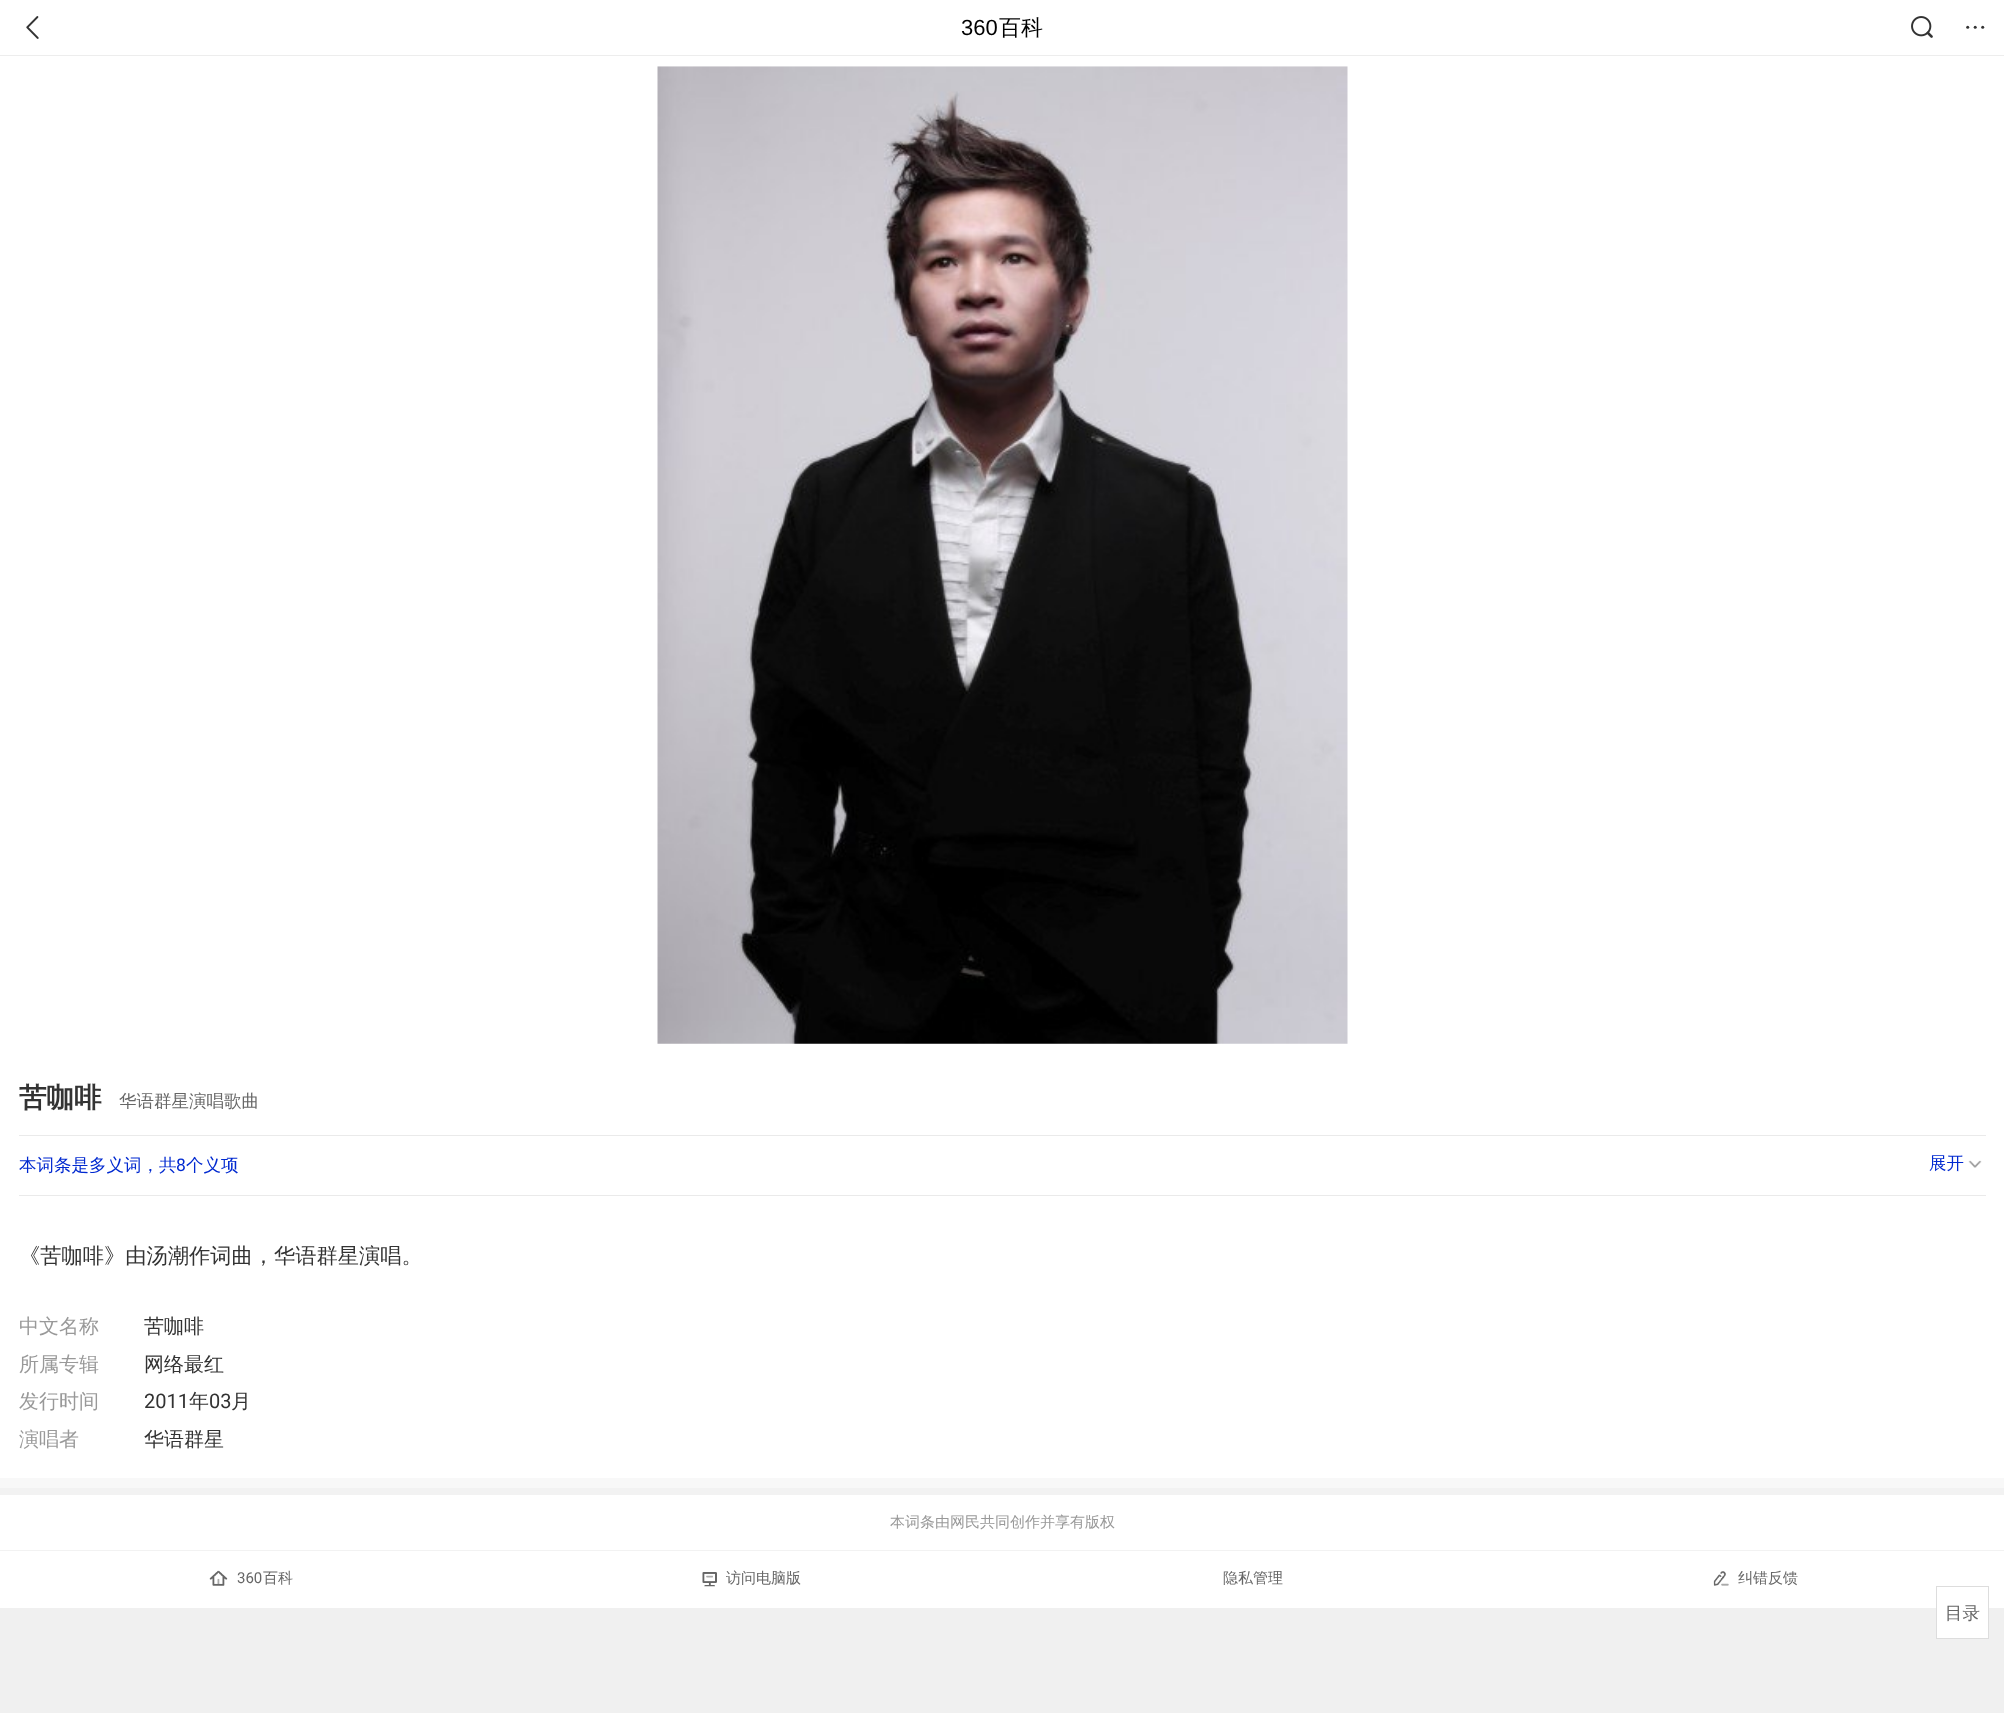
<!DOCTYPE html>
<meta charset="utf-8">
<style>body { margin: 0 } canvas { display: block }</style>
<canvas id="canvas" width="2004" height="1713"></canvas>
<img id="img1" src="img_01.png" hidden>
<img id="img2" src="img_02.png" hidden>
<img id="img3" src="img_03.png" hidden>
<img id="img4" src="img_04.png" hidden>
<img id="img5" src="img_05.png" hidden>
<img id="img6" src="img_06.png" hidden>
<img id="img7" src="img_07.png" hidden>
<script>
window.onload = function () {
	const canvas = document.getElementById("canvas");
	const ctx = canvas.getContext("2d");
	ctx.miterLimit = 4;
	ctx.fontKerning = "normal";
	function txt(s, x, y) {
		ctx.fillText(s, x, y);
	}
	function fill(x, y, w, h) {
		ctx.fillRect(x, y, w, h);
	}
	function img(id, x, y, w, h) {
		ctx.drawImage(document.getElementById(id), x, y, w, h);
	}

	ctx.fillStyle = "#F0F0F0";
	fill(0, 0, 2004, 1713);
	ctx.fillStyle = "#FFFFFF";
	fill(0, 56, 2004, 1552);
	fill(0, 0, 2004, 55);
	ctx.fillStyle = "#EDEDED";
	fill(0, 55, 2004, 1);
	img("img1", 26, 16, 13, 23);
	img("img2", 1911, 16, 22, 22);
	ctx.fillStyle = "#333333";
	ctx.beginPath();
	ctx.arc(1967.7, 27.3, 1.5, 0, Math.PI * 2);
	ctx.fill();
	ctx.beginPath();
	ctx.arc(1975.2, 27.3, 1.5, 0, Math.PI * 2);
	ctx.fill();
	ctx.beginPath();
	ctx.arc(1982.7, 27.3, 1.5, 0, Math.PI * 2);
	ctx.fill();
	ctx.fillStyle = "#FFFFFF";
	fill(1937, 1608, 51, 30);
	ctx.strokeStyle = "#DDDDDD";
	ctx.strokeRect(1936.5, 1586.5, 52, 52);
	img("img3", 657, 66, 691, 978);
	ctx.fillStyle = "#EAEAEA";
	fill(19, 1135, 1967, 1);
	img("img4", 1968, 1160, 14, 8);
	fill(19, 1195, 1967, 1);
	ctx.fillStyle = "#F8F8F8";
	fill(0, 1478, 2004, 10);
	ctx.fillStyle = "#F2F2F2";
	fill(0, 1488, 2004, 7);
	fill(0, 1550, 2004, 1);
	img("img5", 209, 1570, 19, 16);
	img("img6", 702, 1572, 15, 15);
	img("img7", 1713, 1571, 16, 15);
	ctx.font = "22px Liberation Sans";
	ctx.fillStyle = "#000000";
	txt("360", 961, 35);
	ctx.font = "500 22px WenQuanYi Zen Hei";
	txt("百科", 999, 35);
	ctx.font = "500 17.5px WenQuanYi Zen Hei";
	ctx.fillStyle = "#666666";
	txt("目录", 1945, 1619);
	ctx.font = "bold 27.5px WenQuanYi Zen Hei";
	ctx.fillStyle = "#333333";
	txt("苦咖啡", 19, 1107);
	ctx.font = "500 17.5px WenQuanYi Zen Hei";
	ctx.fillStyle = "#666666";
	txt("华语群星演唱歌曲", 119, 1107);
	ctx.fillStyle = "#0029D0";
	txt("本词条是多义词，共", 19, 1171);
	ctx.font = "17.5px Roboto";
	txt("8", 176, 1171);
	ctx.font = "500 17.5px WenQuanYi Zen Hei";
	txt("个义项", 186, 1171);
	txt("展开", 1929, 1169);
	ctx.font = "500 21.25px WenQuanYi Zen Hei";
	ctx.fillStyle = "#333333";
	txt("《苦咖啡》由汤潮作词曲，华语群星演唱。", 19, 1263);
	ctx.font = "500 20px WenQuanYi Zen Hei";
	ctx.fillStyle = "#999999";
	txt("中文名称", 19, 1333);
	ctx.fillStyle = "#333333";
	txt("苦咖啡", 144, 1333);
	ctx.fillStyle = "#999999";
	txt("所属专辑", 19, 1371);
	ctx.fillStyle = "#333333";
	txt("网络最红", 144, 1371);
	ctx.fillStyle = "#999999";
	txt("发行时间", 19, 1408);
	ctx.font = "20px Roboto";
	ctx.fillStyle = "#333333";
	txt("2011", 144, 1408);
	ctx.font = "500 20px WenQuanYi Zen Hei";
	txt("年", 189, 1408);
	ctx.font = "20px Roboto";
	txt("03", 209, 1408);
	ctx.font = "500 20px WenQuanYi Zen Hei";
	txt("月", 231, 1408);
	ctx.fillStyle = "#999999";
	txt("演唱者", 19, 1446);
	ctx.fillStyle = "#333333";
	txt("华语群星", 144, 1446);
	ctx.font = "500 15px WenQuanYi Zen Hei";
	ctx.fillStyle = "#999999";
	txt("本词条由网民共同创作并享有版权", 890, 1527);
	ctx.font = "15px Roboto";
	ctx.fillStyle = "#666666";
	txt("360", 237, 1583);
	ctx.font = "500 15px WenQuanYi Zen Hei";
	txt("百科", 263, 1583);
	txt("访问电脑版", 726, 1583);
	txt("隐私管理", 1223, 1583);
	txt("纠错反馈", 1738, 1583);
};
</script>
